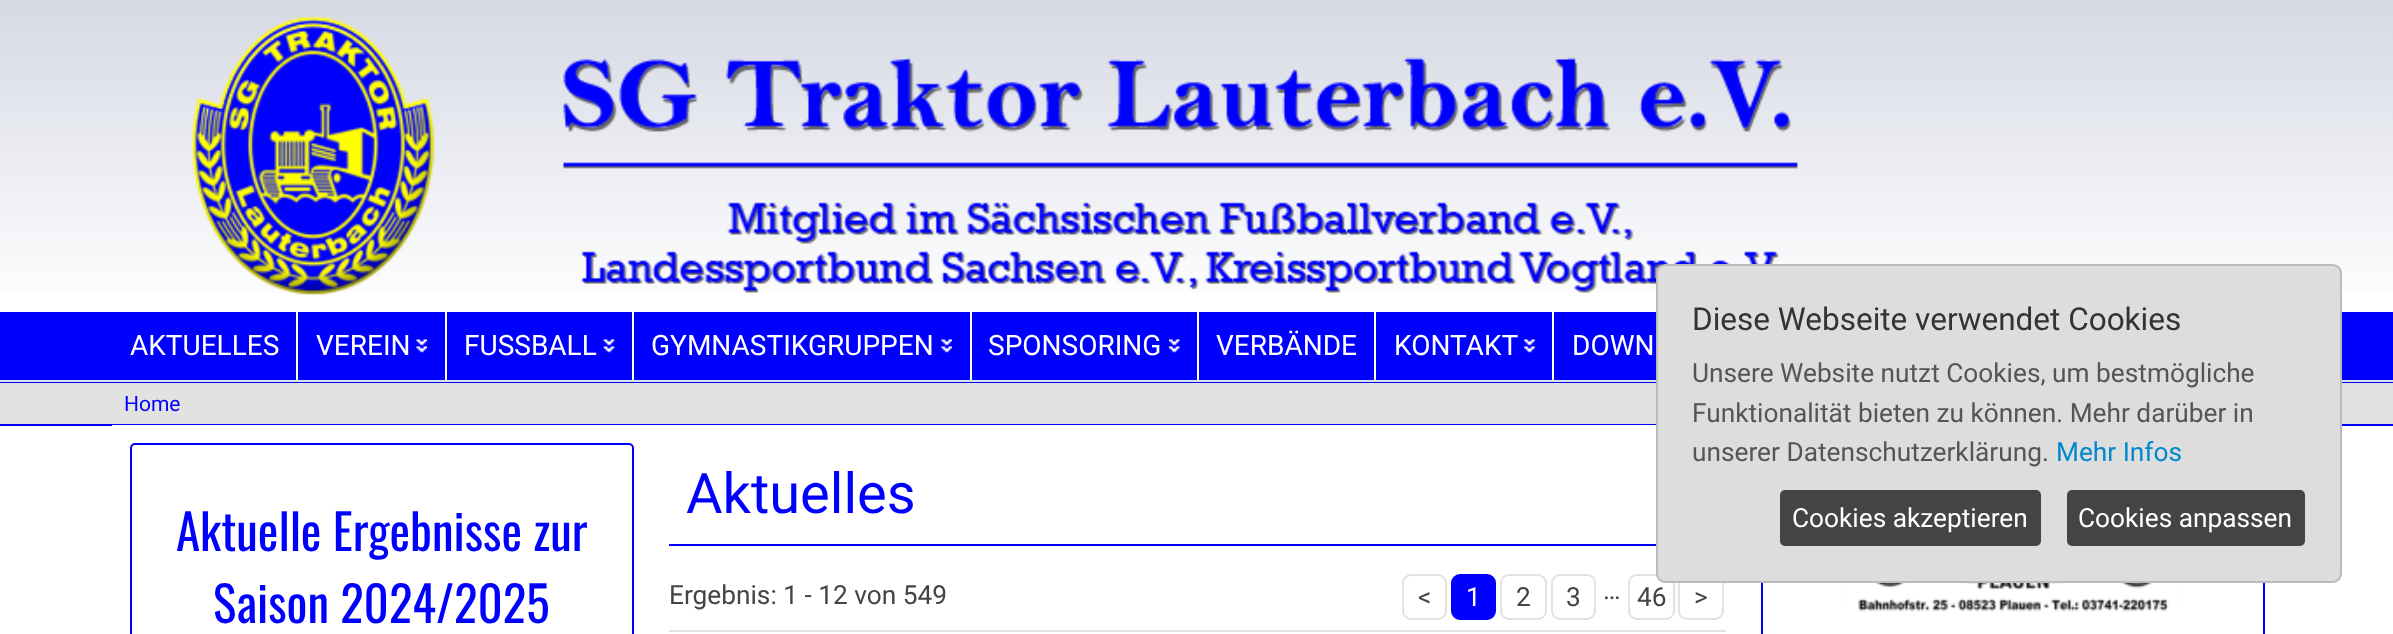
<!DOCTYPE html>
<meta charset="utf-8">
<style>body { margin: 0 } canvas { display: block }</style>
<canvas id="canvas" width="2393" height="634"></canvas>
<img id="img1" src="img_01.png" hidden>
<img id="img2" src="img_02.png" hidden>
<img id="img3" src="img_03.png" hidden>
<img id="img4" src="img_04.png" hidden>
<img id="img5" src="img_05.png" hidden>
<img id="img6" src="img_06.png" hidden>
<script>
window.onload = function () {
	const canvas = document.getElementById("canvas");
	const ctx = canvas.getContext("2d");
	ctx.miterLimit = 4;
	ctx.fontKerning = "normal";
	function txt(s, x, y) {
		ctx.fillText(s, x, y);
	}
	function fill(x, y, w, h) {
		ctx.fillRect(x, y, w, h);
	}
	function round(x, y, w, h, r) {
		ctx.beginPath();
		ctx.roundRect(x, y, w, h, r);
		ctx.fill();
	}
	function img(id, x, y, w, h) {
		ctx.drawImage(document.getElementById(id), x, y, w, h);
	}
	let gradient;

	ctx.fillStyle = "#FFFFFF";
	fill(0, 0, 2393, 634);
	gradient = ctx.createLinearGradient(1197, 0, 1197, 312);
	gradient.addColorStop(0, "#D6D9E4");
	gradient.addColorStop(1, "#FFFFFF");
	ctx.fillStyle = gradient;
	fill(0, 0, 2393, 293);
	img("img1", 192, 17, 1606, 278);
	ctx.fillStyle = "#0000FF";
	fill(0, 312, 2393, 68);
	ctx.fillStyle = "#E2E2E2";
	fill(0, 380, 2393, 2);
	ctx.fillStyle = "#FFFFFF";
	fill(296, 312, 2, 68);
	fill(445, 312, 2, 68);
	img("img2", 416, 339, 11, 14);
	fill(632, 312, 2, 68);
	img("img3", 603, 339, 12, 14);
	fill(970, 312, 2, 68);
	img("img2", 941, 339, 11, 14);
	fill(1197, 312, 2, 68);
	img("img4", 1169, 339, 11, 14);
	fill(1374, 312, 2, 68);
	fill(1552, 312, 2, 68);
	img("img5", 1524, 339, 11, 14);
	ctx.fillStyle = "#0000FF";
	fill(0, 382, 2393, 1);
	ctx.fillStyle = "#E2E2E2";
	fill(0, 383, 2393, 41);
	ctx.fillStyle = "#0000FF";
	fill(0, 424, 2393, 2);
	ctx.fillStyle = "#FFFFFF";
	fill(112, 425, 1631, 1);
	ctx.beginPath();
	ctx.roundRect(1629, 575, 45, 44, 8);
	ctx.strokeStyle = "#E2E2E2";
	ctx.lineWidth = 2;
	ctx.stroke();
	ctx.beginPath();
	ctx.roundRect(1679, 575, 44, 44, 8);
	ctx.stroke();
	ctx.strokeStyle = "#0000FF";
	ctx.strokeRect(1762, 510, 502, 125);
	ctx.fillStyle = "#DDDDDD";
	ctx.beginPath();
	ctx.roundRect(1657, 265, 684, 317, 8);
	ctx.fill();
	ctx.strokeStyle = "#BBBBBB";
	ctx.stroke();
	ctx.fillStyle = "#444444";
	round(1780, 490, 261, 56, 5);
	round(2067, 490, 238, 56, 5);
	ctx.beginPath();
	ctx.roundRect(131, 444, 502, 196, 4);
	ctx.strokeStyle = "#0000FF";
	ctx.stroke();
	ctx.fillStyle = "#0000FF";
	fill(669, 544, 987, 2);
	ctx.fillStyle = "#E2E2E2";
	fill(669, 630, 1057, 2);
	ctx.beginPath();
	ctx.roundRect(1403, 575, 43, 44, 8);
	ctx.strokeStyle = "#E2E2E2";
	ctx.stroke();
	ctx.fillStyle = "#0000FF";
	ctx.beginPath();
	ctx.roundRect(1452, 575, 43, 44, 8);
	ctx.fill();
	ctx.strokeStyle = "#0000FF";
	ctx.stroke();
	ctx.beginPath();
	ctx.roundRect(1501, 575, 45, 44, 8);
	ctx.strokeStyle = "#E2E2E2";
	ctx.stroke();
	ctx.beginPath();
	ctx.roundRect(1552, 575, 43, 44, 8);
	ctx.stroke();
	img("img6", 1847, 583, 331, 29);
	ctx.font = "28px Roboto";
	ctx.fillStyle = "#FFFFFF";
	txt("AKTUELLES", 130, 355);
	txt("VEREIN", 316, 355);
	txt("FUSSBALL", 464, 355);
	txt("GYMNASTIKGRUPPEN", 651, 355);
	txt("SPONSORING", 988, 355);
	txt("VERBÄNDE", 1216, 355);
	txt("KONTAKT", 1394, 355);
	txt("DOWN", 1572, 355);
	ctx.font = "31.5px Roboto";
	ctx.fillStyle = "#333333";
	txt("Diese Webseite verwendet Cookies", 1692, 330);
	ctx.font = "26.25px Roboto";
	ctx.fillStyle = "#555555";
	txt("Unsere Website nutzt Cookies, um bestmögliche", 1692, 382);
	txt("Funktionalität bieten zu können. Mehr darüber in", 1692, 422);
	txt("unserer Datenschutzerklärung.", 1692, 461);
	ctx.fillStyle = "#0088CC";
	txt("Mehr Infos", 2056, 461);
	ctx.fillStyle = "#FFFFFF";
	txt("Cookies akzeptieren", 1792, 527);
	txt("Cookies anpassen", 2078, 527);
	ctx.font = "21px Roboto";
	ctx.fillStyle = "#0000FF";
	txt("Home", 124, 411);
	ctx.font = "49px Oswald";
	txt("Aktuelle Ergebnisse zur", 176, 551);
	txt("Saison 2024/2025", 213, 623);
	ctx.font = "56px Roboto";
	txt("Aktuelles", 686, 513);
	ctx.font = "26.25px Roboto";
	ctx.fillStyle = "#444444";
	txt("Ergebnis: 1 - 12 von 549", 669, 604);
	txt("<", 1418, 606);
	ctx.fillStyle = "#FFFFFF";
	txt("1", 1466, 606);
	ctx.fillStyle = "#444444";
	txt("2", 1516, 606);
	txt("3", 1566, 606);
	txt("…", 1603, 599);
	txt("46", 1637, 606);
	txt(">", 1694, 606);
};
</script>
